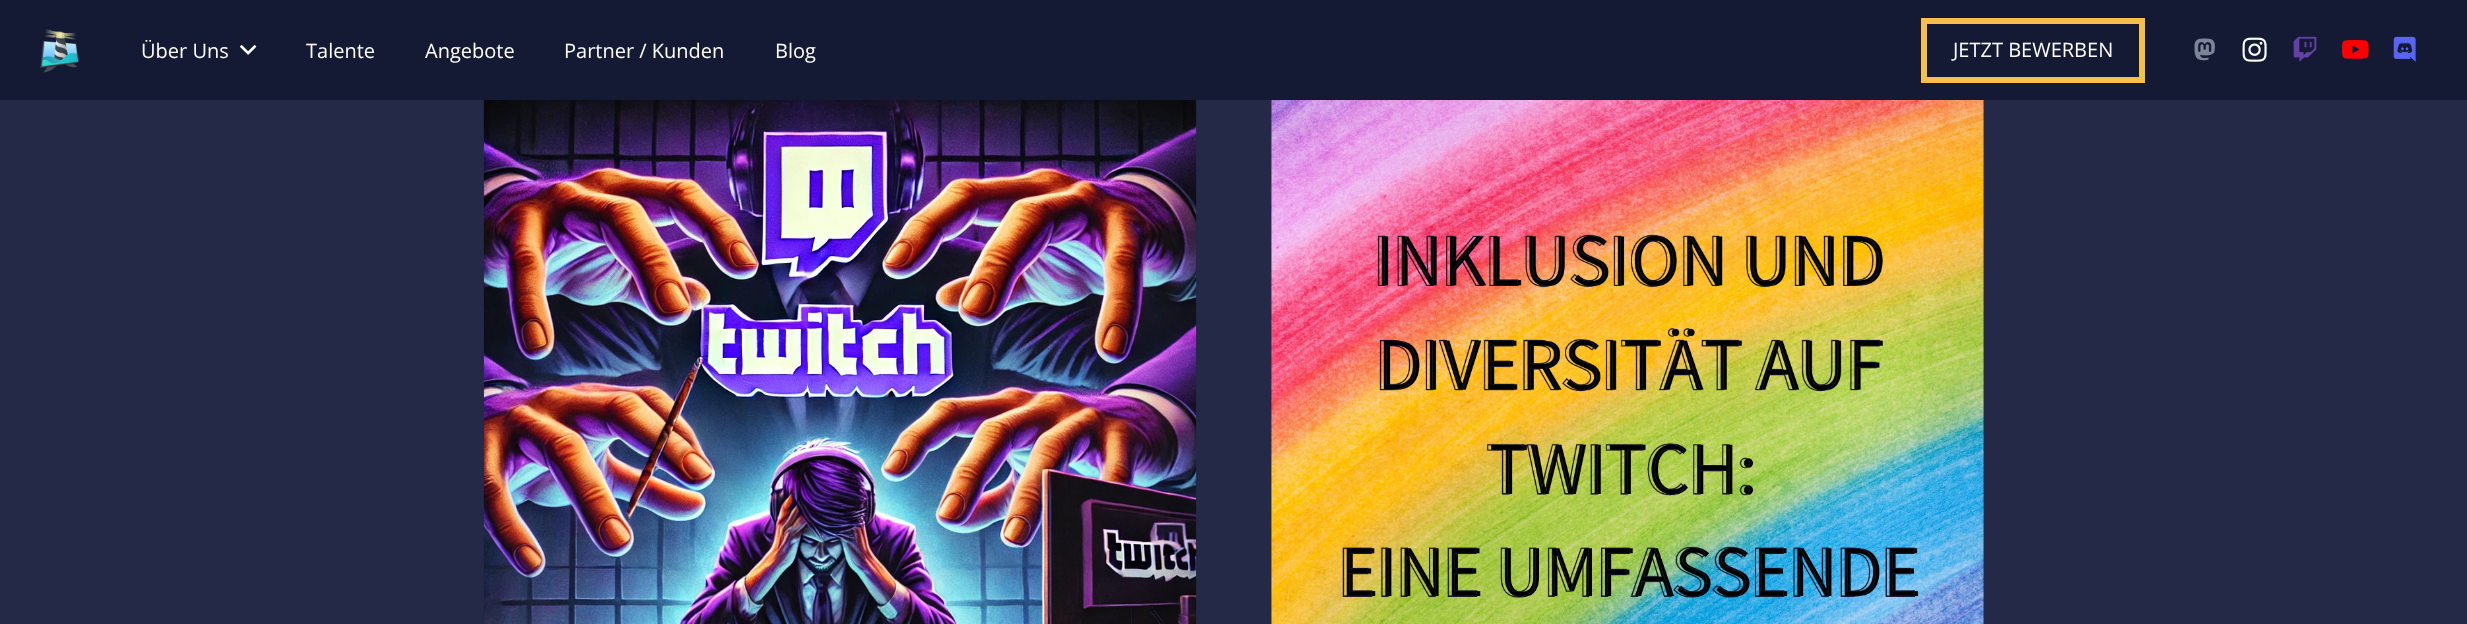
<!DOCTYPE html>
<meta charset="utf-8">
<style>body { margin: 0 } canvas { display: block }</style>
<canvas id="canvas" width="2467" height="624"></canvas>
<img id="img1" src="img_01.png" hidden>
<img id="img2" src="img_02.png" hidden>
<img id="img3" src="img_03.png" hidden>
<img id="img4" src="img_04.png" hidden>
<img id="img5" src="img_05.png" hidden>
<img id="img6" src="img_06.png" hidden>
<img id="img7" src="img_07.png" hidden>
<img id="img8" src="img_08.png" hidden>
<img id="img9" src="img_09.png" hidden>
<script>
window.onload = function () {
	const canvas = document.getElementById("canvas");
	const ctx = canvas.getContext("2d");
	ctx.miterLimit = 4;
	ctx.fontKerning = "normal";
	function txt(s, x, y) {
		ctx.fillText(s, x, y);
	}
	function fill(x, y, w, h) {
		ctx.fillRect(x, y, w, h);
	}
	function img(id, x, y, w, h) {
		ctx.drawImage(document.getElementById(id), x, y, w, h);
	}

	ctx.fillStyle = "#232946";
	fill(0, 0, 2467, 624);
	ctx.fillStyle = "#141A33";
	fill(0, 0, 2467, 100);
	img("img1", 40, 29, 39, 44);
	img("img2", 240, 45, 17, 10);
	ctx.strokeStyle = "#F5C049";
	ctx.lineWidth = 6;
	ctx.strokeRect(1924, 21, 218, 59);
	img("img3", 2194, 38, 21, 23);
	img("img4", 2242, 37, 25, 25);
	img("img5", 2293, 36, 24, 26);
	img("img6", 2342, 40, 27, 19);
	img("img7", 2393, 36, 23, 26);
	img("img8", 483, 100, 714, 524);
	img("img9", 1271, 100, 713, 524);
	ctx.font = "20px Open Sans";
	ctx.fillStyle = "#FFFFFF";
	txt("Über Uns", 141, 58);
	txt("Talente", 306, 58);
	txt("Angebote", 425, 58);
	txt("Partner / Kunden", 564, 58);
	txt("Blog", 775, 58);
	txt("JETZT BEWERBEN", 1953, 57);
};
</script>
